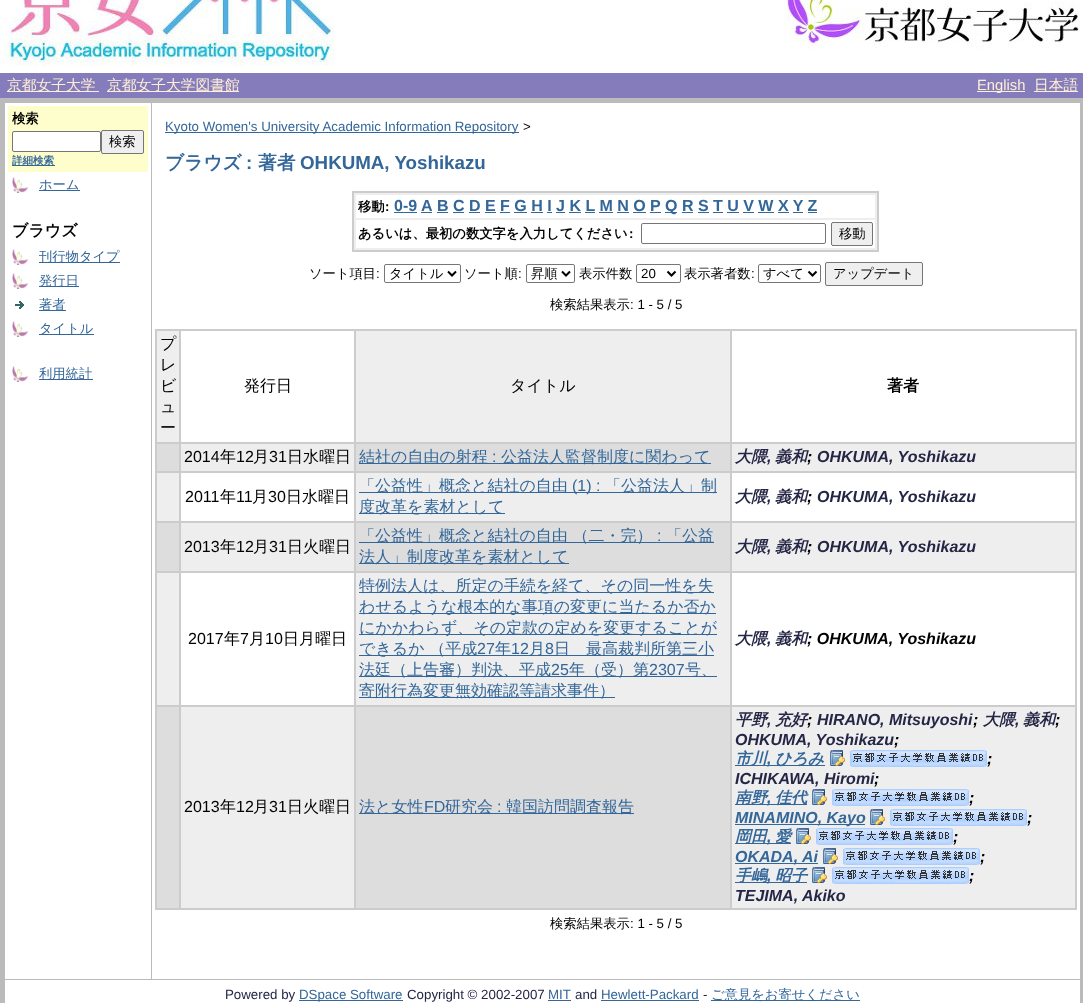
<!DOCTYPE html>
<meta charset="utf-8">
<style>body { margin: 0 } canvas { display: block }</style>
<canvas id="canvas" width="1083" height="1003"></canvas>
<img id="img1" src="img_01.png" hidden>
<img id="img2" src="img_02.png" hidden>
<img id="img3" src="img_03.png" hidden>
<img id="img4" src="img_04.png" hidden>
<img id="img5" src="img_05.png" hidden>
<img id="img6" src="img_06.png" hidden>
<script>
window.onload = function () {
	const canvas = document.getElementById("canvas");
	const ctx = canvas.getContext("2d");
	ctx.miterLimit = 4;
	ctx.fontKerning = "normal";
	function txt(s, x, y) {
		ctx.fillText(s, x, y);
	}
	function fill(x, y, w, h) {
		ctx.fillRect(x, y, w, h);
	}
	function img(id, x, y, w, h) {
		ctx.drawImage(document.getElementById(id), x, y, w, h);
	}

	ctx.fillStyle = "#BBBBBB";
	fill(0, 0, 1083, 1003);
	ctx.fillStyle = "#FFFFFF";
	fill(0, 0, 1083, 73);
	img("img1", 0, 0, 334, 67);
	img("img2", 784, 0, 296, 49);
	ctx.fillStyle = "#857CBB";
	fill(0, 73, 1083, 25);
	ctx.fillStyle = "#FFEFD5";
	fill(7, 91, 92, 1);
	fill(107, 91, 132, 1);
	fill(977, 91, 48, 1);
	fill(1034, 91, 44, 1);
	ctx.fillStyle = "#FFFFFF";
	fill(5, 103, 146, 876);
	ctx.fillStyle = "#FEFECD";
	fill(8, 106, 140, 66);
	ctx.fillStyle = "#FFFFFF";
	ctx.beginPath();
	ctx.roundRect(12.5, 131.5, 88, 20, 1.5);
	ctx.fill();
	ctx.strokeStyle = "#767676";
	ctx.stroke();
	ctx.fillStyle = "#EFEFEF";
	ctx.beginPath();
	ctx.roundRect(101.5, 130.5, 42, 23, 1.5);
	ctx.fill();
	ctx.stroke();
	ctx.fillStyle = "#336699";
	fill(12, 165, 43, 1);
	img("img3", 12, 177, 16, 16);
	fill(39, 190, 41, 1);
	img("img3", 12, 249, 16, 16);
	fill(39, 262, 81, 1);
	img("img3", 12, 273, 16, 16);
	fill(39, 286, 40, 1);
	img("img4", 15, 301, 9, 8);
	fill(39, 310, 27, 1);
	img("img3", 12, 321, 16, 16);
	fill(39, 334, 55, 1);
	img("img3", 12, 366, 16, 16);
	fill(39, 379, 54, 1);
	ctx.fillStyle = "#FFFFFF";
	fill(152, 103, 928, 876);
	ctx.fillStyle = "#336699";
	fill(165, 132, 354, 1);
	ctx.fillStyle = "#CCCCCC";
	fill(352, 191, 527, 61);
	ctx.fillStyle = "#EEEEEE";
	fill(354, 193, 523, 57);
	ctx.fillStyle = "#FFFFFF";
	fill(356, 195, 519, 23);
	ctx.fillStyle = "#336699";
	fill(394, 212, 23, 1);
	fill(437, 212, 11, 1);
	fill(665, 212, 12, 1);
	fill(421, 212, 11, 1);
	fill(453, 212, 11, 1);
	fill(469, 212, 11, 1);
	fill(485, 212, 11, 1);
	fill(500, 212, 10, 1);
	fill(514, 212, 13, 1);
	fill(531, 212, 12, 1);
	fill(547, 212, 5, 1);
	fill(556, 212, 9, 1);
	fill(569, 212, 12, 1);
	fill(585, 212, 10, 1);
	fill(599, 212, 14, 1);
	fill(617, 212, 12, 1);
	fill(633, 212, 13, 1);
	fill(650, 212, 11, 1);
	fill(682, 212, 11, 1);
	fill(698, 212, 11, 1);
	fill(713, 212, 10, 1);
	fill(727, 212, 12, 1);
	fill(743, 212, 11, 1);
	fill(758, 212, 16, 1);
	fill(778, 212, 11, 1);
	fill(793, 212, 10, 1);
	fill(808, 212, 9, 1);
	ctx.fillStyle = "#FFFFFF";
	fill(356, 220, 519, 28);
	ctx.beginPath();
	ctx.roundRect(641.5, 223.5, 184, 20, 1.5);
	ctx.stroke();
	ctx.fillStyle = "#EFEFEF";
	ctx.beginPath();
	ctx.roundRect(831.5, 222.5, 41, 23, 1.5);
	ctx.fill();
	ctx.stroke();
	ctx.beginPath();
	ctx.roundRect(384.5, 264.5, 76, 18, 1.5);
	ctx.stroke();
	ctx.beginPath();
	ctx.moveTo(448, 271.5);
	ctx.lineTo(452, 275.5);
	ctx.lineTo(456, 271.5);
	ctx.strokeStyle = "#000000";
	ctx.lineWidth = 2;
	ctx.stroke();
	ctx.beginPath();
	ctx.roundRect(526.5, 264.5, 48, 18, 1.5);
	ctx.strokeStyle = "#767676";
	ctx.lineWidth = 1;
	ctx.stroke();
	ctx.beginPath();
	ctx.moveTo(562, 271.5);
	ctx.lineTo(566, 275.5);
	ctx.lineTo(570, 271.5);
	ctx.strokeStyle = "#000000";
	ctx.lineWidth = 2;
	ctx.stroke();
	ctx.beginPath();
	ctx.roundRect(636.5, 264.5, 44, 18, 1.5);
	ctx.strokeStyle = "#767676";
	ctx.lineWidth = 1;
	ctx.stroke();
	ctx.beginPath();
	ctx.moveTo(667.5, 271.5);
	ctx.lineTo(671.5, 275.5);
	ctx.lineTo(675.5, 271.5);
	ctx.strokeStyle = "#000000";
	ctx.lineWidth = 2;
	ctx.stroke();
	ctx.beginPath();
	ctx.roundRect(758.5, 264.5, 62, 18, 1.5);
	ctx.strokeStyle = "#767676";
	ctx.lineWidth = 1;
	ctx.stroke();
	ctx.beginPath();
	ctx.moveTo(808.5, 271.5);
	ctx.lineTo(812.5, 275.5);
	ctx.lineTo(816.5, 271.5);
	ctx.strokeStyle = "#000000";
	ctx.lineWidth = 2;
	ctx.stroke();
	ctx.beginPath();
	ctx.roundRect(825.5, 262.5, 97, 23, 1.5);
	ctx.fill();
	ctx.strokeStyle = "#767676";
	ctx.lineWidth = 1;
	ctx.stroke();
	ctx.fillStyle = "#CCCCCC";
	fill(155, 329, 922, 581);
	ctx.fillStyle = "#EEEEEE";
	fill(157, 331, 22, 111);
	ctx.fillStyle = "#FFFFFF";
	fill(181, 331, 173, 111);
	ctx.fillStyle = "#EEEEEE";
	fill(356, 331, 374, 111);
	ctx.fillStyle = "#FFFFFF";
	fill(732, 331, 343, 111);
	ctx.fillStyle = "#DDDDDD";
	fill(157, 444, 22, 27);
	ctx.fillStyle = "#EEEEEE";
	fill(181, 444, 173, 27);
	ctx.fillStyle = "#DDDDDD";
	fill(356, 444, 374, 27);
	ctx.fillStyle = "#336699";
	fill(359, 463, 352, 1);
	ctx.fillStyle = "#EEEEEE";
	fill(732, 444, 343, 27);
	fill(157, 473, 22, 48);
	ctx.fillStyle = "#FFFFFF";
	fill(181, 473, 173, 48);
	ctx.fillStyle = "#EEEEEE";
	fill(356, 473, 374, 48);
	ctx.fillStyle = "#336699";
	fill(359, 492, 358, 1);
	fill(359, 513, 146, 1);
	ctx.fillStyle = "#FFFFFF";
	fill(732, 473, 343, 48);
	ctx.fillStyle = "#DDDDDD";
	fill(157, 523, 22, 48);
	ctx.fillStyle = "#EEEEEE";
	fill(181, 523, 173, 48);
	ctx.fillStyle = "#DDDDDD";
	fill(356, 523, 374, 48);
	ctx.fillStyle = "#336699";
	fill(359, 542, 355, 1);
	fill(359, 563, 210, 1);
	ctx.fillStyle = "#EEEEEE";
	fill(732, 523, 343, 48);
	fill(157, 573, 22, 132);
	ctx.fillStyle = "#FFFFFF";
	fill(181, 573, 173, 132);
	ctx.fillStyle = "#EEEEEE";
	fill(356, 573, 374, 132);
	ctx.fillStyle = "#336699";
	fill(359, 592, 355, 1);
	fill(359, 613, 357, 1);
	fill(359, 634, 358, 1);
	fill(359, 655, 355, 1);
	fill(359, 676, 358, 1);
	fill(359, 697, 256, 1);
	ctx.fillStyle = "#FFFFFF";
	fill(732, 573, 343, 132);
	ctx.fillStyle = "#DDDDDD";
	fill(157, 707, 22, 201);
	ctx.fillStyle = "#EEEEEE";
	fill(181, 707, 173, 201);
	ctx.fillStyle = "#DDDDDD";
	fill(356, 707, 374, 201);
	ctx.fillStyle = "#336699";
	fill(359, 813, 275, 1);
	ctx.fillStyle = "#EEEEEE";
	fill(732, 707, 343, 201);
	img("img5", 830, 750, 15, 16);
	img("img6", 850, 750, 137, 17);
	ctx.fillStyle = "#336699";
	fill(735, 765, 90, 1);
	img("img5", 812, 789, 15, 16);
	img("img6", 832, 789, 137, 17);
	fill(735, 804, 72, 1);
	fill(735, 824, 130, 1);
	img("img5", 870, 809, 15, 16);
	img("img6", 890, 809, 137, 17);
	img("img5", 796, 828, 15, 16);
	img("img6", 816, 828, 137, 17);
	fill(735, 843, 56, 1);
	fill(735, 863, 83, 1);
	img("img5", 823, 848, 15, 16);
	img("img6", 843, 848, 137, 17);
	img("img5", 812, 867, 15, 16);
	img("img6", 832, 867, 137, 17);
	fill(735, 882, 72, 1);
	ctx.fillStyle = "#FFFFFF";
	fill(5, 980, 1075, 23);
	ctx.fillStyle = "#336699";
	fill(299, 1000, 104, 1);
	fill(548, 1000, 23, 1);
	fill(601, 1000, 98, 1);
	fill(711, 1000, 149, 1);
	ctx.font = "500 14.75px WenQuanYi Zen Hei";
	ctx.fillStyle = "#FFEFD5";
	txt("京都女子大学", 7, 90);
	txt("京都女子大学図書館", 107, 90);
	ctx.font = "14.75px Liberation Sans";
	txt("English", 977, 90);
	ctx.font = "500 14.75px WenQuanYi Zen Hei";
	txt("日本語", 1034, 90);
	ctx.font = "bold 13.3px WenQuanYi Zen Hei";
	ctx.fillStyle = "#000000";
	txt("検索", 12, 123);
	ctx.font = "500 13.3px WenQuanYi Zen Hei";
	txt("検索", 109, 146);
	ctx.font = "bold 10.5px WenQuanYi Zen Hei";
	ctx.fillStyle = "#336699";
	txt("詳細検索", 12, 164);
	ctx.font = "500 13.3px WenQuanYi Zen Hei";
	txt("ホーム", 39, 189);
	ctx.font = "bold 16px WenQuanYi Zen Hei";
	ctx.fillStyle = "#000000";
	txt("ブラウズ", 12, 236);
	ctx.font = "500 13.3px WenQuanYi Zen Hei";
	ctx.fillStyle = "#336699";
	txt("刊行物タイプ", 39, 261);
	txt("発行日", 39, 285);
	txt("著者", 39, 309);
	txt("タイトル", 39, 333);
	txt("利用統計", 39, 378);
	ctx.font = "13.3px Liberation Sans";
	txt("Kyoto Women's University Academic Information Repository", 165, 131);
	ctx.fillStyle = "#000000";
	txt(">", 523, 131);
	ctx.font = "bold 18.75px WenQuanYi Zen Hei";
	ctx.fillStyle = "#336699";
	txt("ブラウズ", 165, 169);
	ctx.font = "bold 18.75px Liberation Sans";
	txt(":", 246, 169);
	ctx.font = "bold 18.75px WenQuanYi Zen Hei";
	txt("著者", 258, 169);
	ctx.font = "bold 18.75px Liberation Sans";
	txt("OHKUMA, Yoshikazu", 300, 169);
	ctx.font = "bold 13.3px WenQuanYi Zen Hei";
	ctx.fillStyle = "#000000";
	txt("移動", 358, 211);
	ctx.font = "bold 13.3px Liberation Sans";
	txt(":", 385, 211);
	ctx.font = "bold 16px Liberation Sans";
	ctx.fillStyle = "#336699";
	txt("0-9 A", 394, 211);
	txt("B C D E F G H I J K L M N O P", 437, 211);
	txt("Q R S T U V W X Y Z", 665, 211);
	ctx.font = "bold 13.3px WenQuanYi Zen Hei";
	ctx.fillStyle = "#000000";
	txt("あるいは、最初の数文字を入力してください", 358, 238);
	ctx.font = "bold 13.3px Liberation Sans";
	txt(":", 629, 238);
	ctx.font = "500 13.3px WenQuanYi Zen Hei";
	txt("移動", 839, 238);
	txt("ソート項目", 309, 278);
	ctx.font = "13.3px Liberation Sans";
	txt(":", 376, 278);
	ctx.font = "500 13.3px WenQuanYi Zen Hei";
	txt("タイトル", 389, 278);
	txt("ソート順", 464, 278);
	ctx.font = "13.3px Liberation Sans";
	txt(":", 518, 278);
	ctx.font = "500 13.3px WenQuanYi Zen Hei";
	txt("昇順", 531, 278);
	txt("表示件数", 579, 278);
	ctx.font = "13.3px Liberation Sans";
	txt("20", 641, 278);
	ctx.font = "500 13.3px WenQuanYi Zen Hei";
	txt("表示著者数", 684, 278);
	ctx.font = "13.3px Liberation Sans";
	txt(":", 751, 278);
	ctx.font = "500 13.3px WenQuanYi Zen Hei";
	txt("すべて", 763, 278);
	txt("アップデート", 833, 278);
	txt("検索結果表示", 550, 309);
	ctx.font = "13.3px Liberation Sans";
	txt(": 1 - 5 / 5", 630, 309);
	ctx.font = "500 16px WenQuanYi Zen Hei";
	txt("プ", 160, 349);
	txt("レ", 160, 370);
	txt("ビ", 160, 391);
	txt("ュ", 160, 412);
	txt("ー", 160, 433);
	txt("発行日", 244, 391);
	txt("タイトル", 510, 391);
	ctx.font = "bold 16px WenQuanYi Zen Hei";
	txt("著者", 887, 391);
	ctx.font = "16px Liberation Sans";
	txt("2014", 184, 462);
	ctx.font = "500 16px WenQuanYi Zen Hei";
	txt("年", 220, 462);
	ctx.font = "16px Liberation Sans";
	txt("12", 236, 462);
	ctx.font = "500 16px WenQuanYi Zen Hei";
	txt("月", 253, 462);
	ctx.font = "16px Liberation Sans";
	txt("31", 269, 462);
	ctx.font = "500 16px WenQuanYi Zen Hei";
	txt("日水曜日", 287, 462);
	ctx.fillStyle = "#336699";
	txt("結社の自由の射程", 359, 462);
	ctx.font = "16px Liberation Sans";
	txt(":", 492, 462);
	ctx.font = "500 16px WenQuanYi Zen Hei";
	txt("公益法人監督制度に関わって", 501, 462);
	ctx.font = "italic bold 16px WenQuanYi Zen Hei";
	ctx.fillStyle = "#252645";
	txt("大隈", 735, 462);
	txt("義和", 775, 462);
	ctx.font = "italic bold 16px Liberation Sans";
	ctx.fillStyle = "#000000";
	txt(";", 807, 462);
	ctx.fillStyle = "#252645";
	txt("OHKUMA, Yoshikazu", 817, 462);
	txt(",", 767, 462);
	ctx.font = "16px Liberation Sans";
	ctx.fillStyle = "#000000";
	txt("2011", 185, 502);
	ctx.font = "500 16px WenQuanYi Zen Hei";
	txt("年", 220, 502);
	ctx.font = "16px Liberation Sans";
	txt("11", 236, 502);
	ctx.font = "500 16px WenQuanYi Zen Hei";
	txt("月", 252, 502);
	ctx.font = "16px Liberation Sans";
	txt("30", 268, 502);
	ctx.font = "500 16px WenQuanYi Zen Hei";
	txt("日水曜日", 286, 502);
	ctx.fillStyle = "#336699";
	txt("「公益性」概念と結社の自由", 359, 491);
	ctx.font = "16px Liberation Sans";
	txt("(1) :", 572, 491);
	ctx.font = "500 16px WenQuanYi Zen Hei";
	txt("「公益法人」制", 605, 491);
	txt("度改革を素材として", 359, 512);
	ctx.font = "italic bold 16px WenQuanYi Zen Hei";
	ctx.fillStyle = "#252645";
	txt("大隈", 735, 502);
	txt("義和", 775, 502);
	ctx.font = "italic bold 16px Liberation Sans";
	ctx.fillStyle = "#000000";
	txt(";", 807, 502);
	ctx.fillStyle = "#252645";
	txt("OHKUMA, Yoshikazu", 817, 502);
	txt(",", 767, 502);
	ctx.font = "16px Liberation Sans";
	ctx.fillStyle = "#000000";
	txt("2013", 184, 552);
	ctx.font = "500 16px WenQuanYi Zen Hei";
	txt("年", 220, 552);
	ctx.font = "16px Liberation Sans";
	txt("12", 236, 552);
	ctx.font = "500 16px WenQuanYi Zen Hei";
	txt("月", 253, 552);
	ctx.font = "16px Liberation Sans";
	txt("31", 269, 552);
	ctx.font = "500 16px WenQuanYi Zen Hei";
	txt("日火曜日", 287, 552);
	ctx.fillStyle = "#336699";
	txt("「公益性」概念と結社の自由 （二・完）", 359, 541);
	ctx.font = "16px Liberation Sans";
	txt(":", 657, 541);
	ctx.font = "500 16px WenQuanYi Zen Hei";
	txt("「公益", 666, 541);
	txt("法人」制度改革を素材として", 359, 562);
	ctx.font = "italic bold 16px WenQuanYi Zen Hei";
	ctx.fillStyle = "#252645";
	txt("大隈", 735, 552);
	txt("義和", 775, 552);
	ctx.font = "italic bold 16px Liberation Sans";
	ctx.fillStyle = "#000000";
	txt(";", 807, 552);
	ctx.fillStyle = "#252645";
	txt("OHKUMA, Yoshikazu", 817, 552);
	txt(",", 767, 552);
	ctx.font = "16px Liberation Sans";
	ctx.fillStyle = "#000000";
	txt("2017", 188, 644);
	ctx.font = "500 16px WenQuanYi Zen Hei";
	txt("年", 224, 644);
	ctx.font = "16px Liberation Sans";
	txt("7", 240, 644);
	ctx.font = "500 16px WenQuanYi Zen Hei";
	txt("月", 249, 644);
	ctx.font = "16px Liberation Sans";
	txt("10", 265, 644);
	ctx.font = "500 16px WenQuanYi Zen Hei";
	txt("日月曜日", 283, 644);
	ctx.fillStyle = "#336699";
	txt("特例法人は、所定の手続を経て、その同一性を失", 359, 591);
	txt("わせるような根本的な事項の変更に当たるか否か", 359, 612);
	txt("にかかわらず、その定款の定めを変更することが", 359, 633);
	txt("できるか （平成", 359, 654);
	ctx.font = "16px Liberation Sans";
	txt("27", 477, 654);
	ctx.font = "500 16px WenQuanYi Zen Hei";
	txt("年", 495, 654);
	ctx.font = "16px Liberation Sans";
	txt("12", 511, 654);
	ctx.font = "500 16px WenQuanYi Zen Hei";
	txt("月", 529, 654);
	ctx.font = "16px Liberation Sans";
	txt("8", 545, 654);
	ctx.font = "500 16px WenQuanYi Zen Hei";
	txt("日　最高裁判所第三小", 554, 654);
	txt("法廷（上告審）判決、平成", 359, 675);
	ctx.font = "16px Liberation Sans";
	txt("25", 551, 675);
	ctx.font = "500 16px WenQuanYi Zen Hei";
	txt("年（受）第", 569, 675);
	ctx.font = "16px Liberation Sans";
	txt("2307", 649, 675);
	ctx.font = "500 16px WenQuanYi Zen Hei";
	txt("号、", 685, 675);
	txt("寄附行為変更無効確認等請求事件）", 359, 696);
	ctx.font = "italic bold 16px WenQuanYi Zen Hei";
	ctx.fillStyle = "#252645";
	txt("大隈", 735, 644);
	txt("義和", 775, 644);
	ctx.font = "italic bold 16px Liberation Sans";
	ctx.fillStyle = "#000000";
	txt("; OHKUMA, Yoshikazu", 807, 644);
	ctx.fillStyle = "#252645";
	txt(",", 767, 644);
	ctx.font = "16px Liberation Sans";
	ctx.fillStyle = "#000000";
	txt("2013", 184, 812);
	ctx.font = "500 16px WenQuanYi Zen Hei";
	txt("年", 220, 812);
	ctx.font = "16px Liberation Sans";
	txt("12", 236, 812);
	ctx.font = "500 16px WenQuanYi Zen Hei";
	txt("月", 253, 812);
	ctx.font = "16px Liberation Sans";
	txt("31", 269, 812);
	ctx.font = "500 16px WenQuanYi Zen Hei";
	txt("日火曜日", 287, 812);
	ctx.fillStyle = "#336699";
	txt("法と女性", 359, 812);
	ctx.font = "16px Liberation Sans";
	txt("FD", 424, 812);
	ctx.font = "500 16px WenQuanYi Zen Hei";
	txt("研究会", 445, 812);
	ctx.font = "16px Liberation Sans";
	txt(":", 497, 812);
	ctx.font = "500 16px WenQuanYi Zen Hei";
	txt("韓国訪問調査報告", 506, 812);
	ctx.font = "italic bold 16px WenQuanYi Zen Hei";
	ctx.fillStyle = "#252645";
	txt("平野", 735, 725);
	txt("充好", 775, 725);
	ctx.font = "italic bold 16px Liberation Sans";
	ctx.fillStyle = "#000000";
	txt(";", 807, 725);
	ctx.fillStyle = "#252645";
	txt("HIRANO, Mitsuyoshi", 817, 725);
	ctx.fillStyle = "#000000";
	txt(";", 973, 725);
	ctx.font = "italic bold 16px WenQuanYi Zen Hei";
	ctx.fillStyle = "#252645";
	txt("大隈", 983, 725);
	txt("義和", 1023, 725);
	ctx.font = "italic bold 16px Liberation Sans";
	ctx.fillStyle = "#000000";
	txt(";", 1055, 725);
	ctx.fillStyle = "#252645";
	txt(",", 767, 725);
	txt(",", 1015, 725);
	txt("OHKUMA, Yoshikazu", 735, 745);
	ctx.fillStyle = "#000000";
	txt(";", 894, 745);
	ctx.font = "italic bold 16px WenQuanYi Zen Hei";
	ctx.fillStyle = "#336699";
	txt("市川", 735, 764);
	txt("ひろみ", 775, 764);
	ctx.font = "italic bold 16px Liberation Sans";
	ctx.fillStyle = "#000000";
	txt(";", 987, 764);
	ctx.fillStyle = "#336699";
	txt(",", 767, 764);
	ctx.fillStyle = "#252645";
	txt("ICHIKAWA, Hiromi", 735, 784);
	ctx.fillStyle = "#000000";
	txt(";", 874, 784);
	ctx.font = "italic bold 16px WenQuanYi Zen Hei";
	ctx.fillStyle = "#336699";
	txt("南野", 735, 803);
	txt("佳代", 775, 803);
	ctx.font = "italic bold 16px Liberation Sans";
	ctx.fillStyle = "#000000";
	txt(";", 969, 803);
	ctx.fillStyle = "#336699";
	txt(",", 767, 803);
	txt("MINAMINO, Kayo", 735, 823);
	ctx.fillStyle = "#000000";
	txt(";", 1027, 823);
	ctx.font = "italic bold 16px WenQuanYi Zen Hei";
	ctx.fillStyle = "#336699";
	txt("岡田", 735, 842);
	txt("愛", 775, 842);
	ctx.font = "italic bold 16px Liberation Sans";
	ctx.fillStyle = "#000000";
	txt(";", 953, 842);
	ctx.fillStyle = "#336699";
	txt(",", 767, 842);
	txt("OKADA, Ai", 735, 862);
	ctx.fillStyle = "#000000";
	txt(";", 980, 862);
	ctx.font = "italic bold 16px WenQuanYi Zen Hei";
	ctx.fillStyle = "#336699";
	txt("手嶋", 735, 881);
	txt("昭子", 775, 881);
	ctx.font = "italic bold 16px Liberation Sans";
	ctx.fillStyle = "#000000";
	txt(";", 969, 881);
	ctx.fillStyle = "#336699";
	txt(",", 767, 881);
	ctx.fillStyle = "#252645";
	txt("TEJIMA, Akiko", 735, 901);
	ctx.font = "500 13.3px WenQuanYi Zen Hei";
	ctx.fillStyle = "#000000";
	txt("検索結果表示", 550, 928);
	ctx.font = "13.3px Liberation Sans";
	txt(": 1 - 5 / 5", 630, 928);
	ctx.fillStyle = "#252645";
	txt("Powered by", 225, 999);
	ctx.fillStyle = "#336699";
	txt("DSpace Software", 299, 999);
	ctx.fillStyle = "#252645";
	txt("Copyright © 2002-2007", 407, 999);
	ctx.fillStyle = "#336699";
	txt("MIT", 548, 999);
	ctx.fillStyle = "#252645";
	txt("and", 575, 999);
	ctx.fillStyle = "#336699";
	txt("Hewlett-Packard", 601, 999);
	ctx.fillStyle = "#252645";
	txt("-", 703, 999);
	ctx.font = "500 13.3px WenQuanYi Zen Hei";
	ctx.fillStyle = "#336699";
	txt("ご意見をお寄せください", 711, 999);
};
</script>
